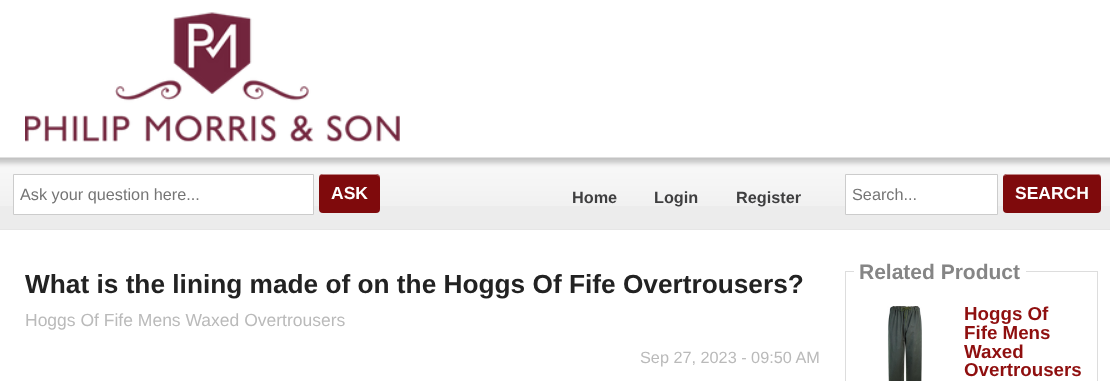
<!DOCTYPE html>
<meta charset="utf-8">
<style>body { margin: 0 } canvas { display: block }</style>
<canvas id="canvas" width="1110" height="381"></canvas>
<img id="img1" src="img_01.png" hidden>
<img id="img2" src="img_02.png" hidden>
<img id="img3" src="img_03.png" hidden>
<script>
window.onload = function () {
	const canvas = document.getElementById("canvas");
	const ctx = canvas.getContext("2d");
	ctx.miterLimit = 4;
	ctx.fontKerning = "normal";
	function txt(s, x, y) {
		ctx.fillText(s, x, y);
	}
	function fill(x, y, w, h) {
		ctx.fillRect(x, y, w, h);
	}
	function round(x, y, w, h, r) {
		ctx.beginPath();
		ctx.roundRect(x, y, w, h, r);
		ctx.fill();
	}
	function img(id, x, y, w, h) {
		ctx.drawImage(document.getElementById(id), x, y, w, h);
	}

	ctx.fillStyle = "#FFFFFF";
	fill(0, 0, 1110, 381);
	img("img1", 25, 12, 375, 130);
	ctx.fillStyle = "#ECECEC";
	fill(0, 206, 1110, 23);
	img("img2", 0, 157, 1110, 49);
	ctx.fillStyle = "#E6E6E6";
	fill(0, 229, 1110, 1);
	ctx.fillStyle = "#FFFFFF";
	ctx.beginPath();
	ctx.rect(13.5, 174.5, 300, 40);
	ctx.fill();
	ctx.strokeStyle = "#CCCCCC";
	ctx.stroke();
	ctx.fillStyle = "#7F0A0C";
	round(319, 174, 61, 39, 4);
	ctx.fillStyle = "rgba(255, 255, 255, 0.5)";
	ctx.beginPath();
	ctx.moveTo(322, 175);
	ctx.lineTo(376, 175);
	ctx.bezierCurveTo(378, 175, 380, 177, 380, 179);
	ctx.bezierCurveTo(380, 172, 372, 174, 367, 174);
	ctx.lineTo(332, 174);
	ctx.bezierCurveTo(327, 174, 319, 172, 319, 179);
	ctx.bezierCurveTo(319, 177, 320, 175, 322, 175);
	ctx.closePath();
	ctx.fill();
	ctx.fillStyle = "#FFFFFF";
	ctx.beginPath();
	ctx.rect(845.5, 174.5, 152, 40);
	ctx.fill();
	ctx.stroke();
	ctx.fillStyle = "#7F0A0C";
	round(1003, 174, 98, 39, 4);
	ctx.fillStyle = "rgba(255, 255, 255, 0.5)";
	ctx.beginPath();
	ctx.moveTo(1006, 175);
	ctx.lineTo(1098, 175);
	ctx.bezierCurveTo(1100, 175, 1101, 177, 1101, 179);
	ctx.lineTo(1101, 178);
	ctx.bezierCurveTo(1101, 176, 1099, 174, 1097, 174);
	ctx.lineTo(1007, 174);
	ctx.bezierCurveTo(1006, 174, 1004, 175, 1004, 176);
	ctx.closePath();
	ctx.fill();
	ctx.strokeStyle = "#DDDDDD";
	ctx.strokeRect(845.5, 271.5, 252, 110);
	ctx.fillStyle = "#FFFFFF";
	fill(854, 271, 172, 1);
	img("img3", 887, 306, 35, 75);
	ctx.font = "16.25px Liberation Sans";
	ctx.fillStyle = "#757575";
	txt("Ask your question here...", 20, 200);
	ctx.font = "bold 17.5px Liberation Sans";
	ctx.fillStyle = "#FFFFFF";
	txt("ASK", 331, 199);
	ctx.font = "bold 16.25px Liberation Sans";
	ctx.fillStyle = "#3F3F40";
	txt("Home", 572, 203);
	txt("Login", 654, 203);
	txt("Register", 736, 203);
	ctx.font = "16.25px Liberation Sans";
	ctx.fillStyle = "#757575";
	txt("Search...", 852, 200);
	ctx.font = "bold 17.5px Liberation Sans";
	ctx.fillStyle = "#FFFFFF";
	txt("SEARCH", 1015, 199);
	ctx.font = "bold 26.25px Liberation Sans";
	ctx.fillStyle = "#222222";
	txt("What is the lining made of on the Hoggs Of Fife Overtrousers?", 25, 293);
	ctx.font = "17.5px Liberation Sans";
	ctx.fillStyle = "#BABABA";
	txt("Hoggs Of Fife Mens Waxed Overtrousers", 25, 326);
	ctx.font = "16.25px Liberation Sans";
	txt("Sep 27, 2023 - 09:50 AM", 640, 363);
	ctx.font = "bold 21px Liberation Sans";
	ctx.fillStyle = "#858585";
	txt("Related Product", 859, 279);
	ctx.font = "bold 18.75px Liberation Sans";
	ctx.fillStyle = "#8F0F0F";
	txt("Hoggs Of", 964, 320);
	txt("Fife Mens", 964, 339);
	txt("Waxed", 964, 358);
	txt("Overtrousers", 964, 376);
};
</script>
